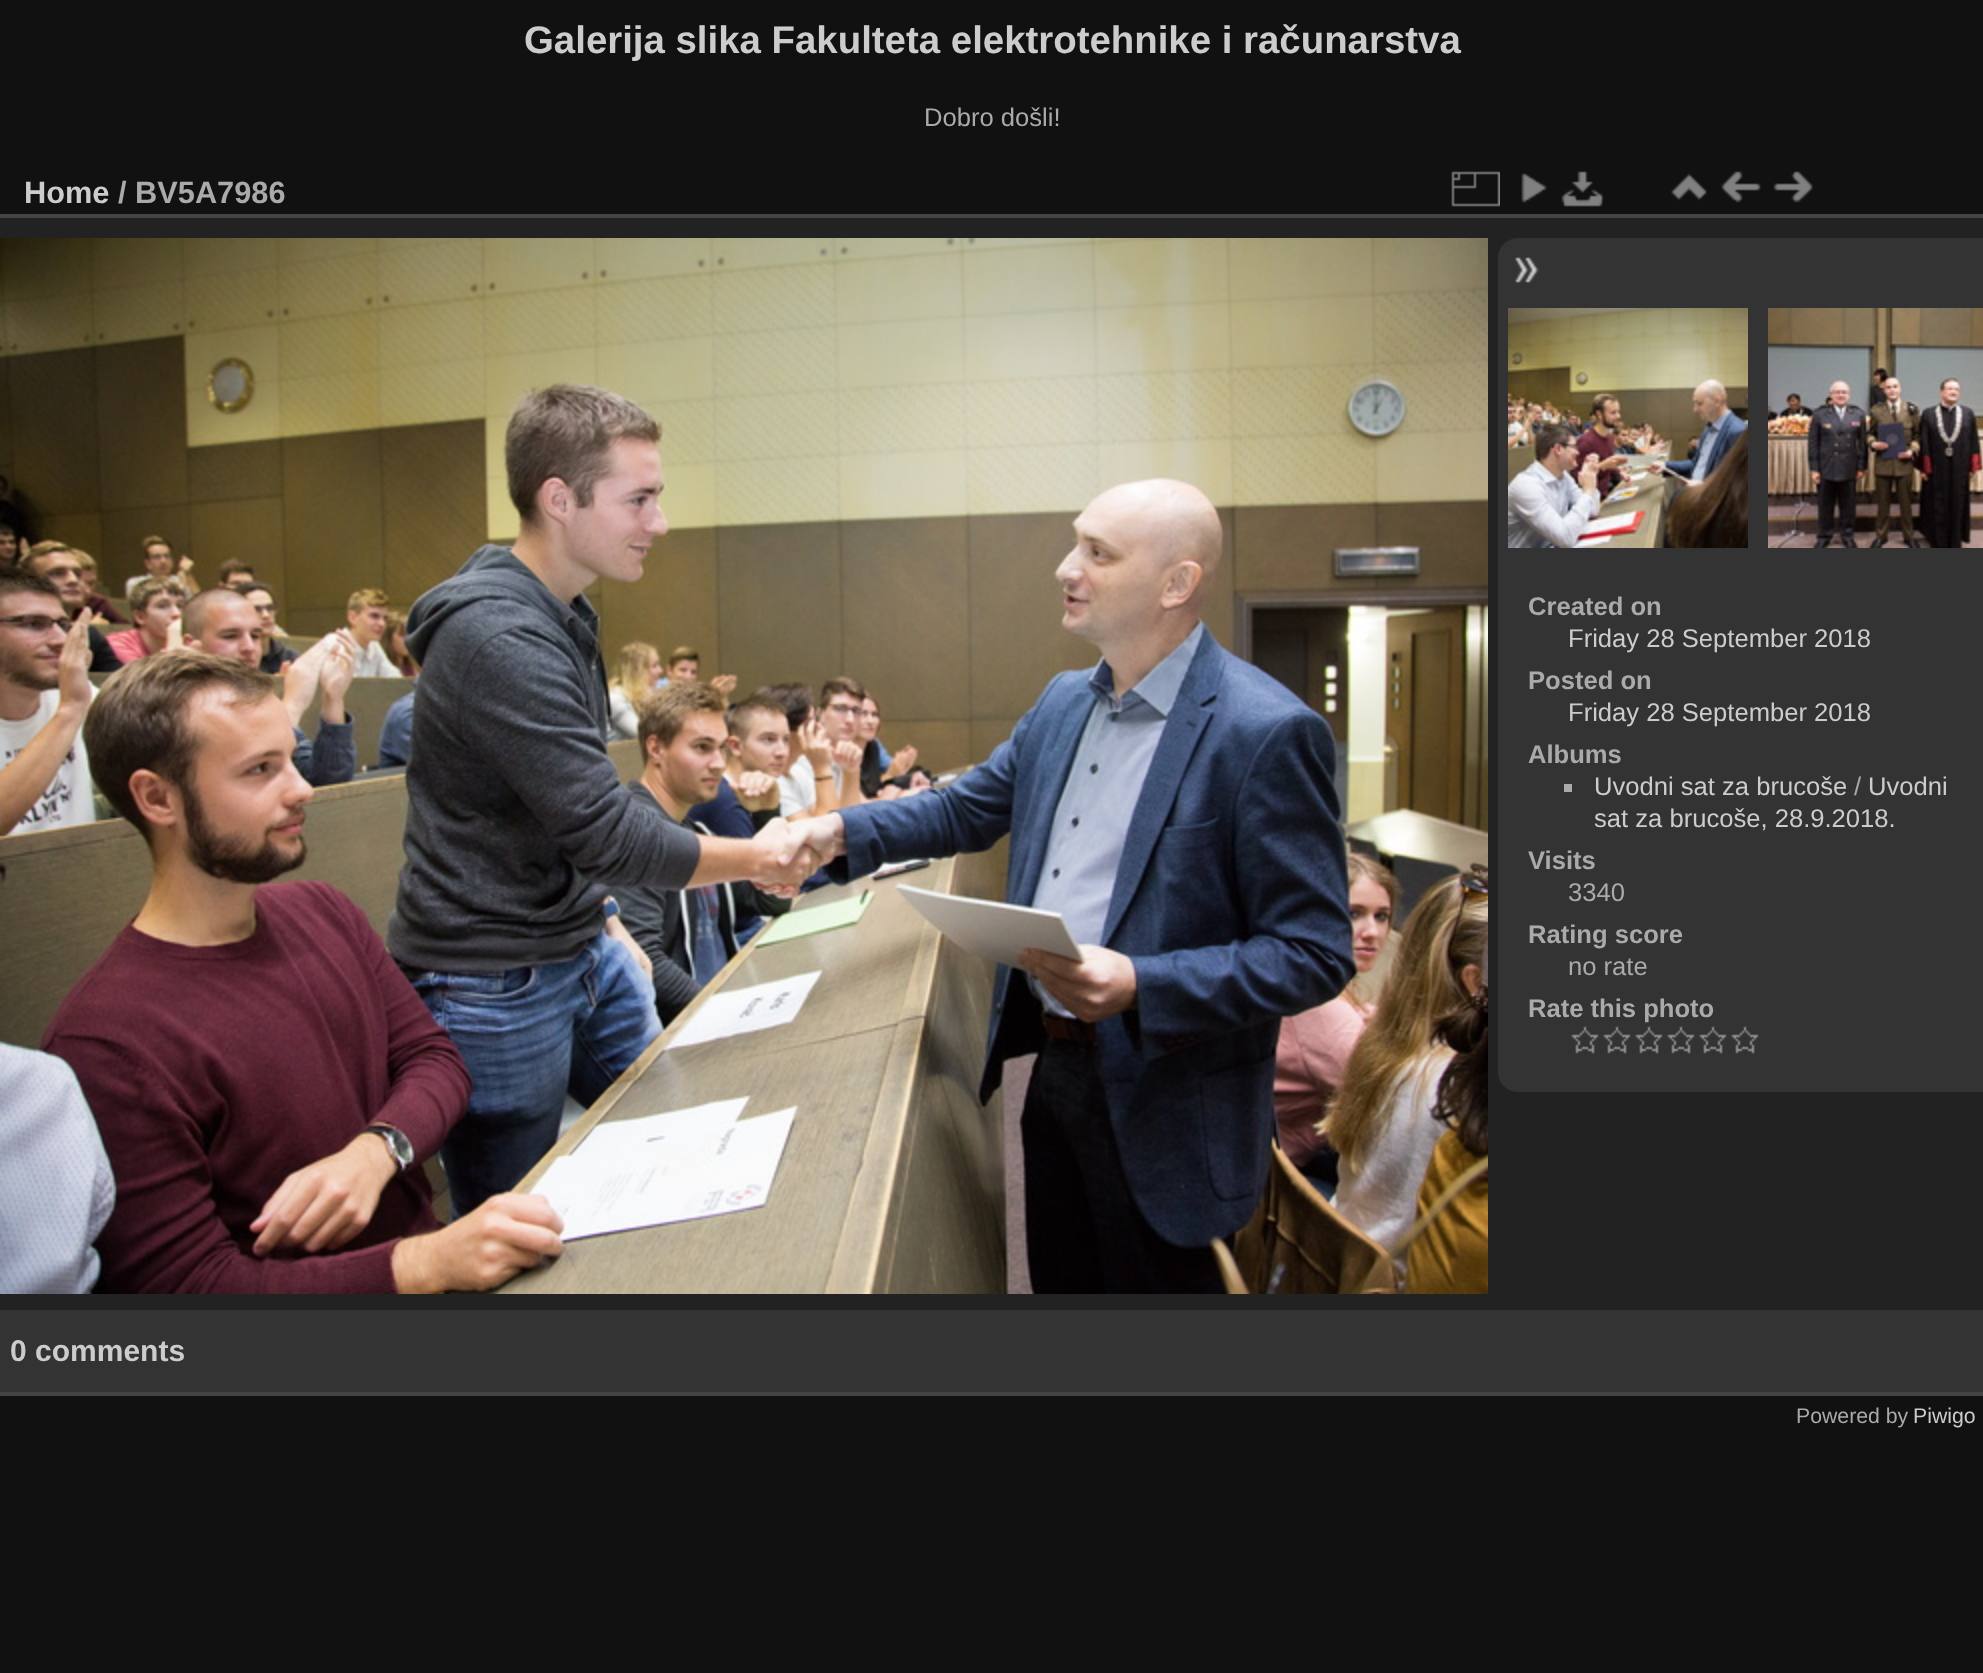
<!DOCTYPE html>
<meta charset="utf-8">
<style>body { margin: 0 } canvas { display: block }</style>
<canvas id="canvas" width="1983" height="1673"></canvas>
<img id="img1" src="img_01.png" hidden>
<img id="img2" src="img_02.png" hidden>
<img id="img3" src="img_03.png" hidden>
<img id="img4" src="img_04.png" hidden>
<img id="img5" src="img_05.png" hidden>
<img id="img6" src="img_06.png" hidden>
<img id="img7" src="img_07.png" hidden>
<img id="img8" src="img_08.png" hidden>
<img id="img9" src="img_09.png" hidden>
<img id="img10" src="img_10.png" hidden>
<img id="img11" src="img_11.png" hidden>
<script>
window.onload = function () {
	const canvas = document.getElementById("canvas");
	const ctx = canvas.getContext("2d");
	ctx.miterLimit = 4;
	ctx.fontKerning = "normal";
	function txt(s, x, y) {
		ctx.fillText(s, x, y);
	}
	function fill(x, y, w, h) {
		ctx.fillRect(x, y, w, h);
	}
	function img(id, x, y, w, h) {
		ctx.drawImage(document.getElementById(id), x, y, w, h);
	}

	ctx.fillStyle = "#111111";
	fill(0, 0, 1983, 1673);
	ctx.fillStyle = "#222222";
	fill(0, 218, 1983, 1092);
	ctx.fillStyle = "#444444";
	fill(0, 1392, 1983, 4);
	fill(0, 214, 1983, 4);
	img("img1", 1451, 171, 49, 36);
	img("img2", 1521, 173, 26, 30);
	img("img3", 1561, 171, 43, 36);
	img("img4", 1671, 173, 36, 28);
	img("img5", 1721, 171, 40, 32);
	img("img6", 1773, 171, 40, 32);
	img("img7", 0, 238, 1488, 1056);
	ctx.fillStyle = "#333333";
	ctx.beginPath();
	ctx.moveTo(1518, 238);
	ctx.lineTo(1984, 238);
	ctx.lineTo(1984, 1092);
	ctx.lineTo(1518, 1092);
	ctx.bezierCurveTo(1507, 1092, 1498, 1083, 1498, 1072);
	ctx.lineTo(1498, 258);
	ctx.bezierCurveTo(1498, 247, 1507, 238, 1518, 238);
	ctx.closePath();
	ctx.fill();
	img("img8", 1515, 257, 24, 26);
	img("img9", 1508, 308, 240, 240);
	img("img10", 1768, 308, 215, 240);
	ctx.fillStyle = "#AAAAAA";
	fill(1564, 784, 8, 8);
	img("img11", 1571, 1026, 28, 28);
	img("img11", 1603, 1026, 28, 28);
	img("img11", 1635, 1026, 28, 28);
	img("img11", 1667, 1026, 28, 28);
	img("img11", 1699, 1026, 28, 28);
	img("img11", 1731, 1026, 28, 28);
	ctx.fillStyle = "#333333";
	fill(0, 1310, 1983, 82);
	ctx.font = "bold 38.4px Liberation Sans";
	ctx.fillStyle = "#CCCCCC";
	txt("Galerija slika Fakulteta elektrotehnike i računarstva", 524, 53);
	ctx.font = "25.6px Liberation Sans";
	ctx.fillStyle = "#AAAAAA";
	txt("Dobro došli!", 924, 126);
	ctx.font = "bold 30.75px Liberation Sans";
	ctx.fillStyle = "#CCCCCC";
	txt("Home", 24, 203);
	ctx.fillStyle = "#AAAAAA";
	txt("/ BV5A7986", 118, 203);
	ctx.font = "bold 25.6px Liberation Sans";
	txt("Created on", 1528, 615);
	ctx.font = "25.6px Liberation Sans";
	ctx.fillStyle = "#CCCCCC";
	txt("Friday 28 September 2018", 1568, 647);
	ctx.font = "bold 25.6px Liberation Sans";
	ctx.fillStyle = "#AAAAAA";
	txt("Posted on", 1528, 689);
	ctx.font = "25.6px Liberation Sans";
	ctx.fillStyle = "#CCCCCC";
	txt("Friday 28 September 2018", 1568, 721);
	ctx.font = "bold 25.6px Liberation Sans";
	ctx.fillStyle = "#AAAAAA";
	txt("Albums", 1528, 763);
	ctx.font = "25.6px Liberation Sans";
	ctx.fillStyle = "#CCCCCC";
	txt("Uvodni sat za brucoše", 1594, 795);
	ctx.fillStyle = "#AAAAAA";
	txt("/", 1854, 795);
	ctx.fillStyle = "#CCCCCC";
	txt("Uvodni", 1868, 795);
	txt("sat za brucoše, 28.9.2018.", 1594, 827);
	ctx.font = "bold 25.6px Liberation Sans";
	ctx.fillStyle = "#AAAAAA";
	txt("Visits", 1528, 869);
	ctx.font = "25.6px Liberation Sans";
	txt("3340", 1568, 901);
	ctx.font = "bold 25.6px Liberation Sans";
	txt("Rating score", 1528, 943);
	ctx.font = "25.6px Liberation Sans";
	txt("no rate", 1568, 975);
	ctx.font = "bold 25.6px Liberation Sans";
	txt("Rate this photo", 1528, 1017);
	ctx.font = "bold 30px Liberation Sans";
	ctx.fillStyle = "#CCCCCC";
	txt("0 comments", 10, 1361);
	ctx.font = "21.25px Liberation Sans";
	ctx.fillStyle = "#AAAAAA";
	txt("Powered by", 1796, 1423);
	ctx.fillStyle = "#CCCCCC";
	txt("Piwigo", 1913, 1423);
};
</script>
